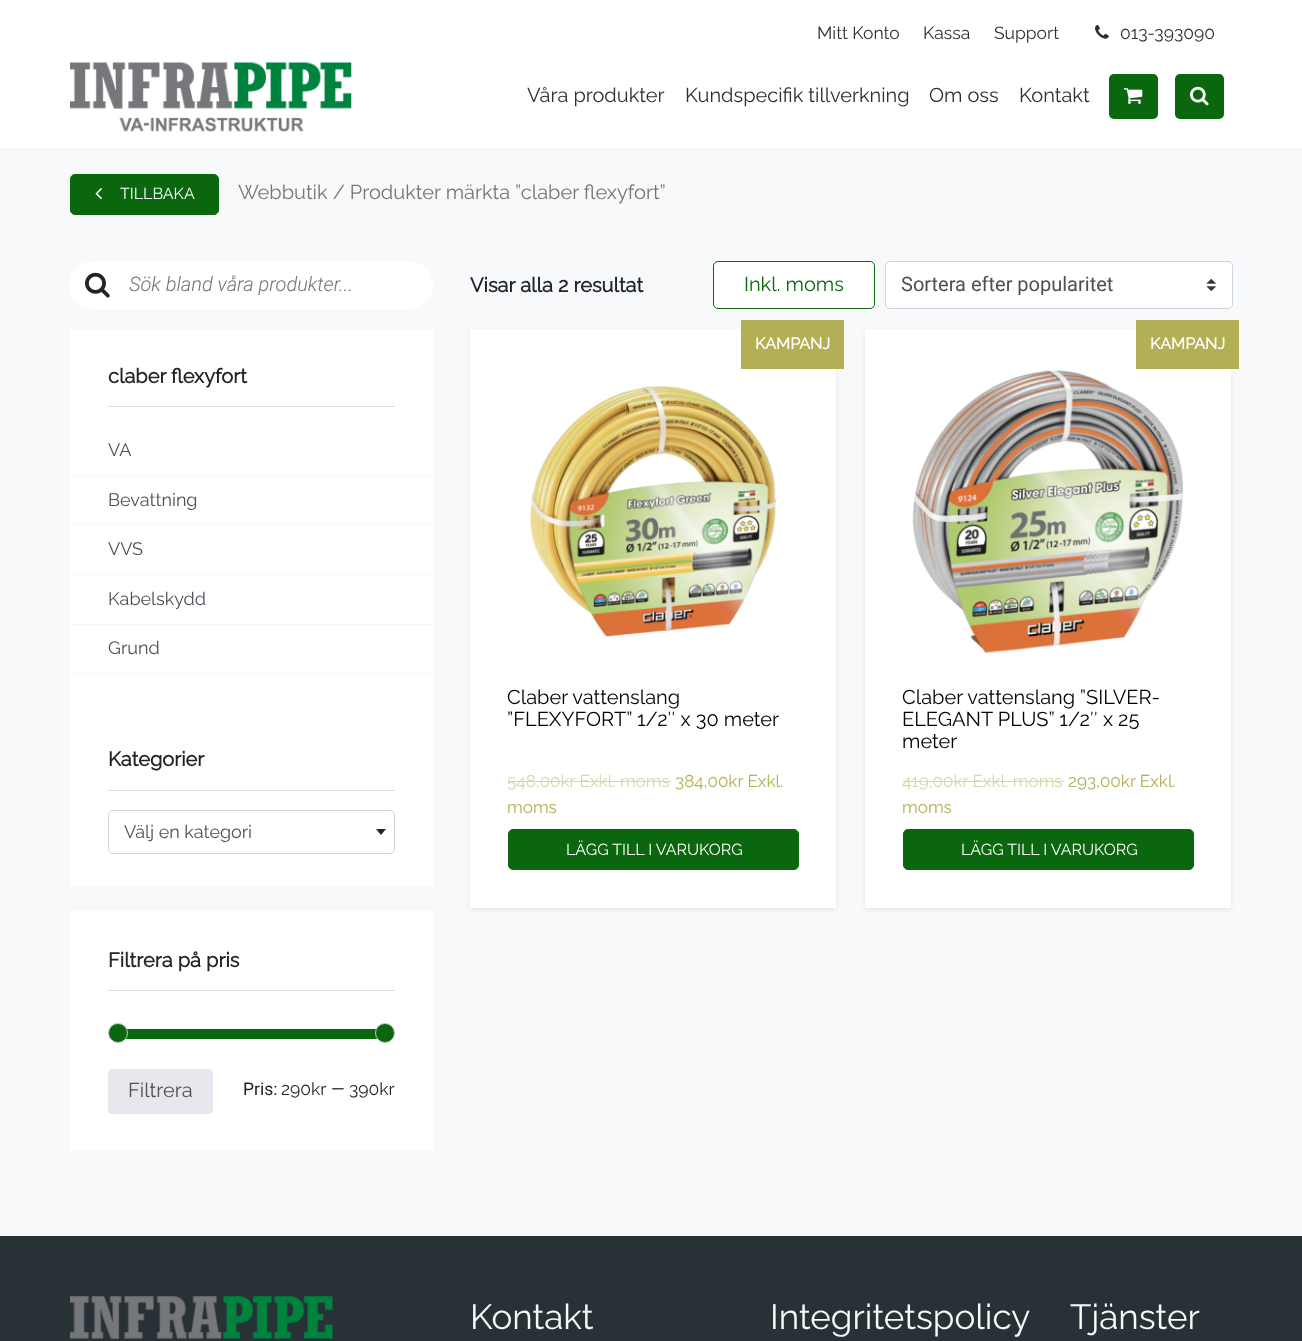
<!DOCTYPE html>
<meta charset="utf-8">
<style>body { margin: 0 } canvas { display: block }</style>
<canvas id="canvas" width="1302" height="1341"></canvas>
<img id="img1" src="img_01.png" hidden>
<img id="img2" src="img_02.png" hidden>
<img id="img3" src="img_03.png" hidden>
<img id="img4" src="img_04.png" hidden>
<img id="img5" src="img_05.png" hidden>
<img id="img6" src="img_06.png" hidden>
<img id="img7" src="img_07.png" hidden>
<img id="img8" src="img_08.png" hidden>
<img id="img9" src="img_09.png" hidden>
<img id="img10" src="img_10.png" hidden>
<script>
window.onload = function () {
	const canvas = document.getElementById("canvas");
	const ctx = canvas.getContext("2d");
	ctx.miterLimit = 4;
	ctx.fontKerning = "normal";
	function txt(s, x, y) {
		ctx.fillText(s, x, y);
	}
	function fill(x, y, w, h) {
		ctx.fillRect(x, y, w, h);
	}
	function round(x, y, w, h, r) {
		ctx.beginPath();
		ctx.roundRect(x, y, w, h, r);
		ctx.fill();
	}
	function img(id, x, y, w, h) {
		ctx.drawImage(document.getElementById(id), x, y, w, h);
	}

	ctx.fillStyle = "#FFFFFF";
	fill(0, 0, 1302, 1341);
	img("img1", 1095, 25, 14, 14);
	img("img2", 70, 62, 282, 70);
	ctx.fillStyle = "#0B670E";
	round(1109, 74, 49, 45, 5);
	img("img3", 1123, 88, 20, 16);
	round(1175, 74, 49, 45, 5);
	img("img4", 1190, 86, 19, 20);
	ctx.fillStyle = "#F8F9FA";
	fill(0, 148, 1302, 1088);
	ctx.fillStyle = "#0B670E";
	ctx.beginPath();
	ctx.roundRect(70.5, 174.5, 148, 40, 4.5);
	ctx.fill();
	ctx.strokeStyle = "#0B670E";
	ctx.stroke();
	img("img5", 95, 188, 7, 12);
	ctx.fillStyle = "#FFFFFF";
	round(69, 261, 364, 48, 24);
	img("img6", 85, 272, 25, 26);
	fill(70, 329, 363, 557);
	ctx.fillStyle = "#DDDDDD";
	fill(108, 406, 287, 1);
	ctx.fillStyle = "#F7F8FA";
	fill(70, 475, 363, 1);
	fill(70, 524, 363, 1);
	fill(70, 574, 363, 1);
	fill(70, 624, 363, 1);
	fill(70, 673, 363, 1);
	ctx.fillStyle = "#DDDDDD";
	fill(108, 790, 287, 1);
	ctx.beginPath();
	ctx.roundRect(108.5, 810.5, 286, 43, 4.5);
	ctx.strokeStyle = "#CED4DA";
	ctx.stroke();
	ctx.fillStyle = "#212529";
	ctx.beginPath();
	ctx.moveTo(376, 829);
	ctx.lineTo(386, 829);
	ctx.lineTo(381, 835);
	ctx.closePath();
	ctx.fill();
	ctx.fillStyle = "#FFFFFF";
	fill(70, 911, 363, 240);
	ctx.fillStyle = "#DDDDDD";
	fill(108, 990, 287, 1);
	ctx.fillStyle = "#0B670E";
	fill(126, 1029, 251, 10);
	ctx.beginPath();
	ctx.arc(118, 1033, 9.5, 0, Math.PI * 2);
	ctx.fill();
	ctx.strokeStyle = "#C5C5C5";
	ctx.stroke();
	ctx.beginPath();
	ctx.arc(385, 1033, 9.5, 0, Math.PI * 2);
	ctx.fill();
	ctx.stroke();
	ctx.fillStyle = "#E9E6ED";
	round(108, 1069, 105, 45, 4);
	ctx.fillStyle = "#FFFFFF";
	ctx.beginPath();
	ctx.roundRect(713.5, 261.5, 161, 47, 4.5);
	ctx.fill();
	ctx.strokeStyle = "#0B670E";
	ctx.stroke();
	round(885, 261, 348, 48, 5);
	img("img7", 1206, 279, 10, 12);
	ctx.beginPath();
	ctx.roundRect(885.5, 261.5, 347, 47, 4.5);
	ctx.strokeStyle = "#CED4DA";
	ctx.stroke();
	ctx.fillStyle = "rgba(0, 0, 0, 0.07)";
	ctx.filter = "blur(2.5px)";
	ctx.beginPath();
	ctx.rect(470, 331, 366, 579);
	ctx.fill();
	ctx.filter = "none";
	ctx.fillStyle = "#FFFFFF";
	fill(470, 329, 366, 579);
	ctx.fillStyle = "#B3AF54";
	fill(741, 320, 103, 49);
	img("img8", 529, 386, 248, 251);
	ctx.fillStyle = "#D9D7AA";
	fill(508, 781, 163, 1);
	ctx.fillStyle = "#0B670E";
	ctx.beginPath();
	ctx.roundRect(508.5, 829.5, 290, 40, 4.5);
	ctx.fill();
	ctx.strokeStyle = "#0B670E";
	ctx.stroke();
	ctx.fillStyle = "rgba(0, 0, 0, 0.07)";
	ctx.filter = "blur(2.5px)";
	ctx.beginPath();
	ctx.rect(865, 331, 366, 579);
	ctx.fill();
	ctx.filter = "none";
	ctx.fillStyle = "#FFFFFF";
	fill(865, 329, 366, 579);
	ctx.fillStyle = "#B3AF54";
	fill(1136, 320, 103, 49);
	img("img9", 912, 370, 272, 284);
	ctx.fillStyle = "#D9D7AA";
	fill(903, 781, 161, 1);
	ctx.fillStyle = "#0B670E";
	ctx.beginPath();
	ctx.roundRect(903.5, 829.5, 290, 40, 4.5);
	ctx.fill();
	ctx.stroke();
	ctx.fillStyle = "#283136";
	fill(0, 1236, 1302, 105);
	img("img10", 70, 1296, 263, 44);
	ctx.font = "100 17.5px Raleway";
	txt("Mitt Konto", 817, 39);
	txt("Kassa", 923, 39);
	txt("Support", 994, 39);
	txt("013-393090", 1120, 39);
	ctx.font = "100 20px Raleway";
	txt("Våra produkter", 527, 102);
	txt("Kundspecifik tillverkning", 685, 102);
	txt("Om oss", 929, 102);
	txt("Kontakt", 1019, 102);
	ctx.font = "100 16px Raleway";
	ctx.fillStyle = "#FFFFFF";
	txt("TILLBAKA", 120, 199);
	ctx.font = "100 20px Raleway";
	ctx.fillStyle = "#767676";
	txt("Webbutik / Produkter märkta ”claber flexyfort”", 238, 199);
	ctx.font = "italic 300 20px Roboto";
	ctx.fillStyle = "#6C757D";
	txt("Sök bland våra produkter...", 129, 291);
	ctx.font = "bold 20px Raleway";
	ctx.fillStyle = "#212529";
	txt("claber flexyfort", 108, 383);
	ctx.font = "100 18px Raleway";
	ctx.fillStyle = "#495057";
	txt("VA", 108, 456);
	txt("Bevattning", 108, 506);
	txt("VVS", 108, 555);
	txt("Kabelskydd", 108, 605);
	txt("Grund", 108, 654);
	ctx.font = "bold 20px Raleway";
	ctx.fillStyle = "#212529";
	txt("Kategorier", 108, 766);
	ctx.font = "100 18px Raleway";
	ctx.fillStyle = "#495057";
	txt("Välj en kategori", 124, 838);
	ctx.font = "bold 20px Raleway";
	ctx.fillStyle = "#212529";
	txt("Filtrera på pris", 108, 967);
	ctx.font = "100 20px Raleway";
	ctx.fillStyle = "#515151";
	txt("Filtrera", 128, 1097);
	ctx.font = "17.5px Roboto";
	ctx.fillStyle = "#212529";
	txt("Pris:", 243, 1095);
	ctx.font = "100 17.5px Raleway";
	txt("290kr", 281, 1095);
	ctx.font = "17.5px Roboto";
	txt("—", 331, 1095);
	ctx.font = "100 17.5px Raleway";
	txt("390kr", 349, 1095);
	ctx.font = "bold 20px Raleway";
	txt("Visar alla 2 resultat", 470, 292);
	ctx.font = "100 20px Raleway";
	ctx.fillStyle = "#0B670E";
	txt("Inkl. moms", 744, 291);
	ctx.font = "20px Roboto";
	ctx.fillStyle = "#495057";
	txt("Sortera efter popularitet", 901, 291);
	ctx.font = "bold 16px Raleway";
	ctx.fillStyle = "#FFFFFF";
	txt("KAMPANJ", 755, 349);
	ctx.font = "100 20px Raleway";
	ctx.fillStyle = "#000000";
	txt("Claber vattenslang", 507, 704);
	txt("”FLEXYFORT” 1/2″ x 30 meter", 507, 726);
	ctx.font = "100 17.1px Raleway";
	ctx.fillStyle = "#D9D7AA";
	txt("548,00kr Exkl. moms", 507, 787);
	ctx.fillStyle = "#B3AF54";
	txt("384,00kr Exkl.", 675, 787);
	txt("moms", 507, 813);
	ctx.font = "100 16px Raleway";
	ctx.fillStyle = "#FFFFFF";
	txt("LÄGG TILL I VARUKORG", 566, 855);
	ctx.font = "bold 16px Raleway";
	txt("KAMPANJ", 1150, 349);
	ctx.font = "100 20px Raleway";
	ctx.fillStyle = "#000000";
	txt("Claber vattenslang ”SILVER-", 902, 704);
	txt("ELEGANT PLUS” 1/2″ x 25", 902, 726);
	txt("meter", 902, 748);
	ctx.font = "100 17.1px Raleway";
	ctx.fillStyle = "#D9D7AA";
	txt("419,00kr Exkl. moms", 902, 787);
	ctx.fillStyle = "#B3AF54";
	txt("293,00kr Exkl.", 1068, 787);
	txt("moms", 902, 813);
	ctx.font = "100 16px Raleway";
	ctx.fillStyle = "#FFFFFF";
	txt("LÄGG TILL I VARUKORG", 961, 855);
	ctx.font = "100 35px Raleway";
	ctx.fillStyle = "#F8F9FA";
	txt("Kontakt", 470, 1329);
	txt("Integritetspolicy", 770, 1329);
	txt("Tjänster", 1070, 1329);
};
</script>
